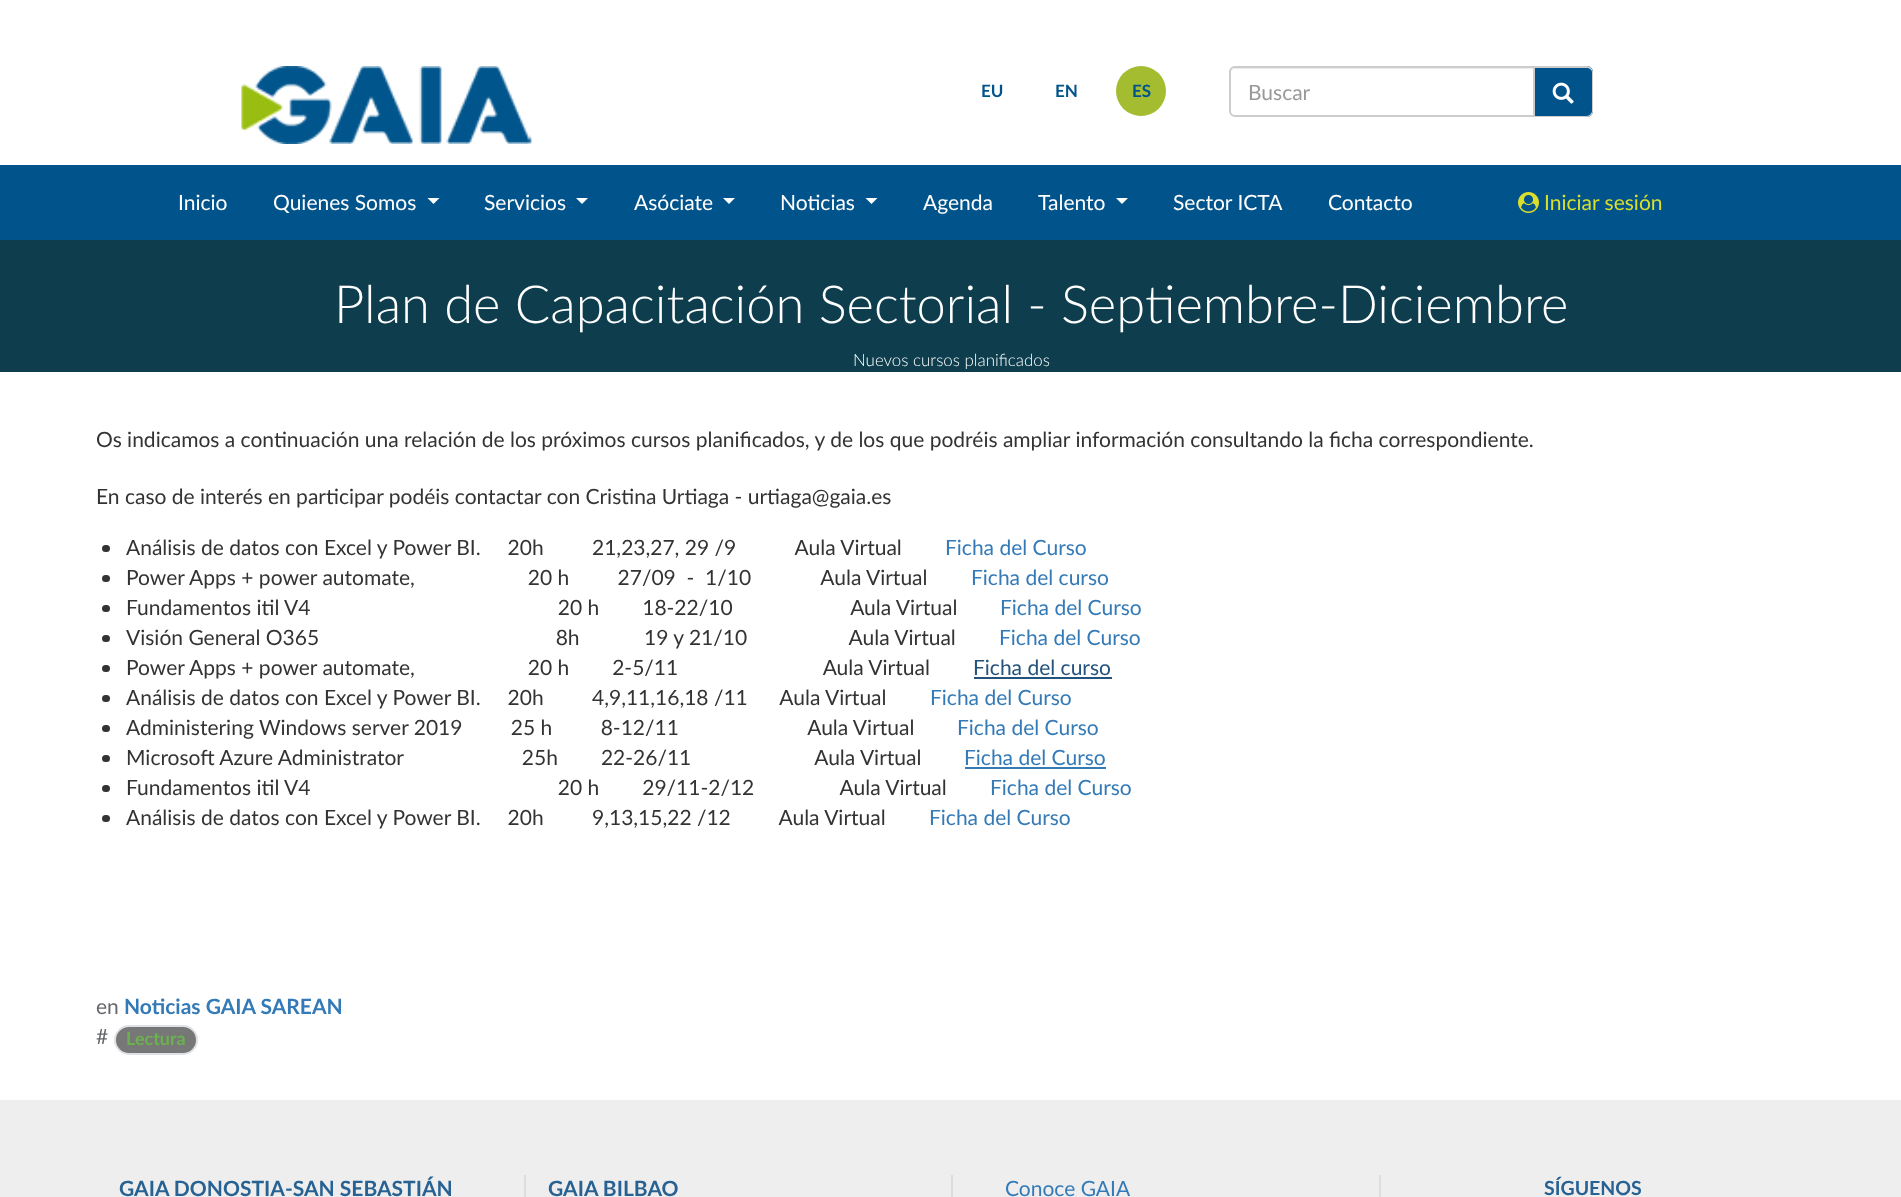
<!DOCTYPE html>
<meta charset="utf-8">
<style>body { margin: 0 } canvas { display: block }</style>
<canvas id="canvas" width="1901" height="1197"></canvas>
<img id="img1" src="img_01.png" hidden>
<img id="img2" src="img_02.png" hidden>
<img id="img3" src="img_03.png" hidden>
<script>
window.onload = function () {
	const canvas = document.getElementById("canvas");
	const ctx = canvas.getContext("2d");
	ctx.miterLimit = 4;
	ctx.fontKerning = "normal";
	function txt(s, x, y) {
		ctx.fillText(s, x, y);
	}
	function fill(x, y, w, h) {
		ctx.fillRect(x, y, w, h);
	}
	function round(x, y, w, h, r) {
		ctx.beginPath();
		ctx.roundRect(x, y, w, h, r);
		ctx.fill();
	}
	function img(id, x, y, w, h) {
		ctx.drawImage(document.getElementById(id), x, y, w, h);
	}

	ctx.fillStyle = "#FFFFFF";
	fill(0, 0, 1901, 1197);
	img("img1", 241, 66, 291, 78);
	ctx.fillStyle = "#A4BC30";
	ctx.beginPath();
	ctx.arc(1141, 91, 25, 0, Math.PI * 2);
	ctx.fill();
	ctx.fillStyle = "#ECECEC";
	ctx.beginPath();
	ctx.moveTo(1234, 69);
	ctx.lineTo(1533, 69);
	ctx.lineTo(1533, 68);
	ctx.lineTo(1235, 68);
	ctx.bezierCurveTo(1232, 68, 1230, 71, 1230, 74);
	ctx.bezierCurveTo(1230, 71, 1232, 69, 1234, 69);
	ctx.closePath();
	ctx.fill();
	ctx.fillStyle = "#01538B";
	ctx.beginPath();
	ctx.roundRect(1535, 66, 58, 51, [0, 6, 6, 0]);
	ctx.fill();
	ctx.fillStyle = "#CCCCCC";
	ctx.beginPath();
	ctx.moveTo(1534, 66);
	ctx.lineTo(1587, 66);
	ctx.bezierCurveTo(1590, 66, 1593, 69, 1593, 72);
	ctx.lineTo(1593, 111);
	ctx.bezierCurveTo(1593, 114, 1590, 117, 1587, 117);
	ctx.lineTo(1534, 117);
	ctx.closePath();
	ctx.moveTo(1534, 68);
	ctx.lineTo(1587, 68);
	ctx.bezierCurveTo(1589, 68, 1592, 70, 1592, 72);
	ctx.lineTo(1592, 111);
	ctx.bezierCurveTo(1592, 113, 1589, 116, 1587, 116);
	ctx.lineTo(1534, 116);
	ctx.closePath();
	ctx.fill("evenodd");
	ctx.beginPath();
	ctx.roundRect(1230, 67, 304, 49, [5, 0, 0, 5]);
	ctx.strokeStyle = "#CCCCCC";
	ctx.lineWidth = 2;
	ctx.stroke();
	img("img2", 1552, 82, 22, 22);
	ctx.fillStyle = "#01538B";
	fill(0, 165, 1901, 75);
	ctx.fillStyle = "#FFFFFF";
	ctx.beginPath();
	ctx.moveTo(427.5, 198);
	ctx.lineTo(439.5, 198);
	ctx.lineTo(433.5, 204);
	ctx.closePath();
	ctx.fill();
	ctx.beginPath();
	ctx.moveTo(576, 198);
	ctx.lineTo(588, 198);
	ctx.lineTo(582, 204);
	ctx.closePath();
	ctx.fill();
	ctx.beginPath();
	ctx.moveTo(723, 198);
	ctx.lineTo(735, 198);
	ctx.lineTo(729, 204);
	ctx.closePath();
	ctx.fill();
	ctx.beginPath();
	ctx.moveTo(865.5, 198);
	ctx.lineTo(877.5, 198);
	ctx.lineTo(871.5, 204);
	ctx.closePath();
	ctx.fill();
	ctx.beginPath();
	ctx.moveTo(1116, 198);
	ctx.lineTo(1128, 198);
	ctx.lineTo(1122, 204);
	ctx.closePath();
	ctx.fill();
	img("img3", 1518, 192, 21, 21);
	ctx.fillStyle = "#0E3E4E";
	fill(0, 240, 1901, 132);
	ctx.fillStyle = "#333333";
	round(102, 545, 8, 7, 3.5);
	round(102, 575, 8, 7, 3.5);
	round(102, 605, 8, 7, 3.5);
	round(102, 635, 8, 7, 3.5);
	round(102, 665, 8, 7, 3.5);
	ctx.fillStyle = "#23527C";
	fill(974, 677, 138, 2);
	ctx.fillStyle = "#333333";
	round(102, 695, 8, 7, 3.5);
	round(102, 725, 8, 7, 3.5);
	round(102, 755, 8, 7, 3.5);
	ctx.fillStyle = "#337AB7";
	fill(965, 767, 141, 2);
	ctx.fillStyle = "#333333";
	round(102, 785, 8, 7, 3.5);
	round(102, 815, 8, 7, 3.5);
	ctx.fillStyle = "#777777";
	ctx.beginPath();
	ctx.roundRect(115, 1026, 82, 28, 14);
	ctx.fill();
	ctx.strokeStyle = "#DEE2E6";
	ctx.stroke();
	ctx.fillStyle = "#EEEEEE";
	fill(0, 1100, 1901, 97);
	ctx.fillStyle = "#DDDDDD";
	fill(524, 1175, 2, 22);
	fill(951, 1175, 2, 22);
	fill(1379, 1175, 2, 22);
	ctx.font = "bold 17px Lato";
	ctx.fillStyle = "#01538B";
	txt("EU", 981, 97);
	txt("EN", 1055, 97);
	txt("ES", 1132, 97);
	ctx.font = "21px Lato";
	ctx.fillStyle = "#999999";
	txt("Buscar", 1248, 100);
	ctx.fillStyle = "#FFFFFF";
	txt("Inicio", 178, 210);
	txt("Quienes Somos", 273, 210);
	txt("Servicios", 484, 210);
	txt("Asóciate", 634, 210);
	txt("Noticias", 780, 210);
	txt("Agenda", 923, 210);
	txt("Talento", 1038, 210);
	txt("Sector ICTA", 1173, 210);
	txt("Contacto", 1328, 210);
	ctx.fillStyle = "#DADF2D";
	txt("Iniciar sesión", 1544, 210);
	ctx.font = "300 52.5px Lato";
	ctx.fillStyle = "#FFFFFF";
	txt("Plan de Capacitación Sectorial - Septiembre-Diciembre", 334, 323);
	ctx.font = "300 16.9px Lato";
	txt("Nuevos cursos planificados", 853, 366);
	ctx.font = "21px Lato";
	ctx.fillStyle = "#333333";
	txt("Os indicamos a continuación una relación de los próximos cursos planificados, y de los que podréis ampliar información consultando la ficha correspondiente.", 96, 447);
	txt("En caso de interés en participar podéis contactar con Cristina Urtiaga - urtiaga@gaia.es", 96, 504);
	txt("Análisis de datos con Excel y Power BI.     20h         21,23,27, 29 /9           Aula Virtual", 126, 555);
	ctx.fillStyle = "#337AB7";
	txt("Ficha del Curso", 945, 555);
	ctx.fillStyle = "#333333";
	txt("Power Apps + power automate,                     20 h         27/09  -  1/10             Aula Virtual", 126, 585);
	ctx.fillStyle = "#337AB7";
	txt("Ficha del curso", 971, 585);
	ctx.fillStyle = "#333333";
	txt("Fundamentos itil V4                                              20 h        18-22/10                      Aula Virtual", 126, 615);
	ctx.fillStyle = "#337AB7";
	txt("Ficha del Curso", 1000, 615);
	ctx.fillStyle = "#333333";
	txt("Visión General O365                                            8h            19 y 21/10                   Aula Virtual", 126, 645);
	ctx.fillStyle = "#337AB7";
	txt("Ficha del Curso", 999, 645);
	ctx.fillStyle = "#333333";
	txt("Power Apps + power automate,                     20 h        2-5/11                           Aula Virtual", 126, 675);
	ctx.fillStyle = "#23527C";
	txt("Ficha del curso", 973, 675);
	ctx.fillStyle = "#333333";
	txt("Análisis de datos con Excel y Power BI.     20h         4,9,11,16,18 /11      Aula Virtual", 126, 705);
	ctx.fillStyle = "#337AB7";
	txt("Ficha del Curso", 930, 705);
	ctx.fillStyle = "#333333";
	txt("Administering Windows server 2019         25 h         8-12/11                        Aula Virtual", 126, 735);
	ctx.fillStyle = "#337AB7";
	txt("Ficha del Curso", 957, 735);
	ctx.fillStyle = "#333333";
	txt("Microsoft Azure Administrator                      25h        22-26/11                       Aula Virtual", 126, 765);
	ctx.fillStyle = "#337AB7";
	txt("Ficha del Curso", 964, 765);
	ctx.fillStyle = "#333333";
	txt("Fundamentos itil V4                                              20 h        29/11-2/12                Aula Virtual", 126, 795);
	ctx.fillStyle = "#337AB7";
	txt("Ficha del Curso", 990, 795);
	ctx.fillStyle = "#333333";
	txt("Análisis de datos con Excel y Power BI.     20h         9,13,15,22 /12         Aula Virtual", 126, 825);
	ctx.fillStyle = "#337AB7";
	txt("Ficha del Curso", 929, 825);
	ctx.fillStyle = "#646669";
	txt("en", 96, 1014);
	ctx.font = "bold 21px Lato";
	ctx.fillStyle = "#337AB7";
	txt("Noticias GAIA SAREAN", 124, 1014);
	ctx.font = "21px Lato";
	ctx.fillStyle = "#646669";
	txt("#", 96, 1044);
	ctx.font = "bold 18px Lato";
	ctx.fillStyle = "#6CB14F";
	txt("Lectura", 126, 1045);
	ctx.font = "bold 21px Lato";
	ctx.fillStyle = "#286292";
	txt("GAIA DONOSTIA-SAN SEBASTIÁN", 119, 1196);
	txt("GAIA BILBAO", 548, 1196);
	ctx.font = "21px Lato";
	ctx.fillStyle = "#337AB7";
	txt("Conoce GAIA", 1005, 1196);
	ctx.font = "bold 19.5px Lato";
	ctx.fillStyle = "#286292";
	txt("SÍGUENOS", 1544, 1195);
};
</script>
